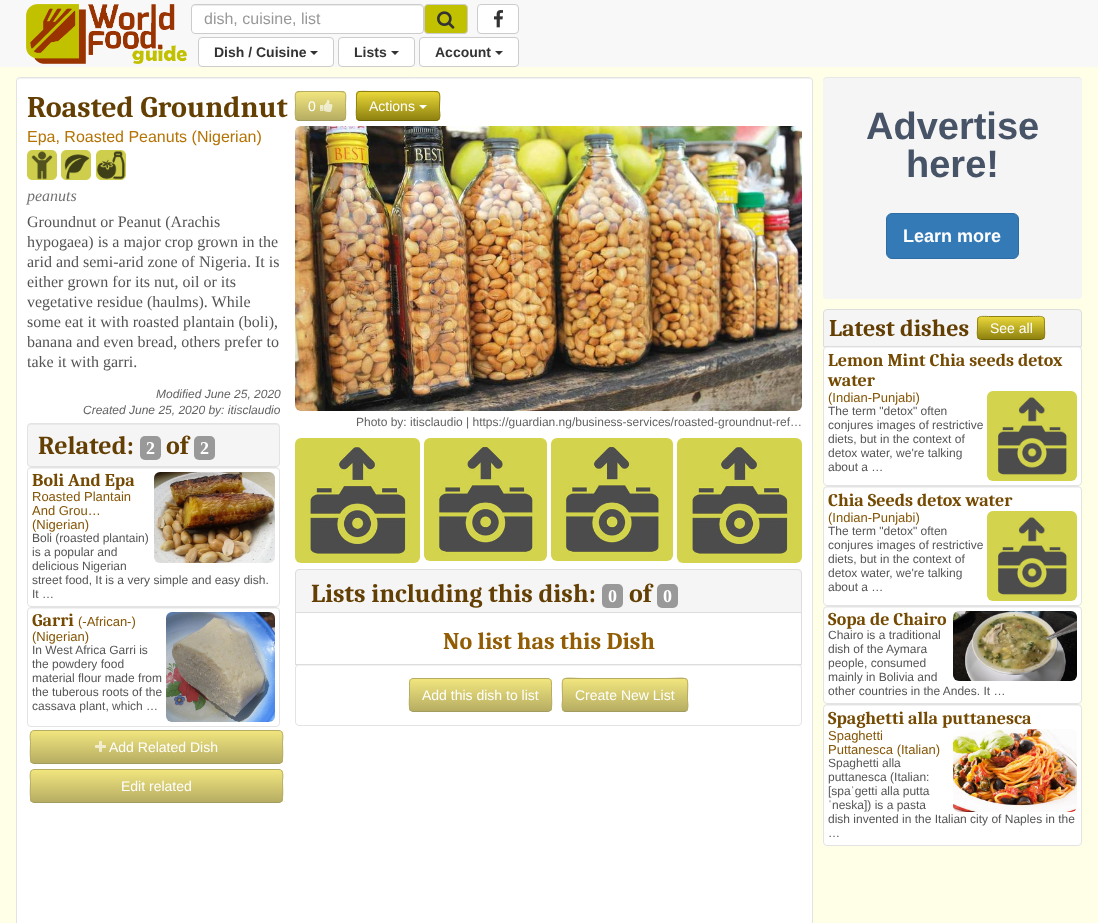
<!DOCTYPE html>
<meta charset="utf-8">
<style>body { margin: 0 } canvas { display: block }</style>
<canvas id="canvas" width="1098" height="923"></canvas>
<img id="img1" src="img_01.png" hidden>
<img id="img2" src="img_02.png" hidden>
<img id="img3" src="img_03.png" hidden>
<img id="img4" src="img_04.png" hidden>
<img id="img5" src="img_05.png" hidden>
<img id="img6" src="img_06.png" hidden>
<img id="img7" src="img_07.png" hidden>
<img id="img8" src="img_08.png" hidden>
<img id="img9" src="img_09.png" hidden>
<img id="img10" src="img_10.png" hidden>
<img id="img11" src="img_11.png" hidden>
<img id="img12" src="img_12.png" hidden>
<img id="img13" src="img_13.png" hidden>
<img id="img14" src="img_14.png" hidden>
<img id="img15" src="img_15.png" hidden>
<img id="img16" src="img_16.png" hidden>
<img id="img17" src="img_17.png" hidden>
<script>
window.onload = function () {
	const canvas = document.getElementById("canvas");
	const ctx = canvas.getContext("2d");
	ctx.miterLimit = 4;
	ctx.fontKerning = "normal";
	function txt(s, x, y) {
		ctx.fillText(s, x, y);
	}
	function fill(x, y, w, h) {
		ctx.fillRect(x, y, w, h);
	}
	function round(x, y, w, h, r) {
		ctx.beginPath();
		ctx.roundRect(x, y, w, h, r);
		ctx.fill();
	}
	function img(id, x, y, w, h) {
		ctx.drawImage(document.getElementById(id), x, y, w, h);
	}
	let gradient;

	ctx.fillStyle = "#FFFFE8";
	fill(0, 0, 1098, 923);
	ctx.fillStyle = "#F8F8F8";
	fill(0, 0, 1098, 67);
	img("img1", 26, 4, 161, 60);
	ctx.fillStyle = "#FFFFFF";
	round(191, 4, 233, 30, 4);
	ctx.fillStyle = "#ECECEC";
	ctx.beginPath();
	ctx.moveTo(195, 6);
	ctx.lineTo(420, 6);
	ctx.bezierCurveTo(422, 6, 423, 7, 423, 9);
	ctx.bezierCurveTo(423, 7, 422, 5, 420, 5);
	ctx.lineTo(195, 5);
	ctx.bezierCurveTo(193, 5, 192, 7, 192, 9);
	ctx.bezierCurveTo(192, 7, 193, 6, 195, 6);
	ctx.closePath();
	ctx.fill();
	ctx.beginPath();
	ctx.roundRect(191.5, 4.5, 232, 29, 3.5);
	ctx.strokeStyle = "#CCCCCC";
	ctx.stroke();
	ctx.fillStyle = "#C1C100";
	ctx.beginPath();
	ctx.roundRect(424.5, 4.5, 43, 29, 3.5);
	ctx.fill();
	ctx.stroke();
	img("img2", 437, 11, 18, 18);
	ctx.fillStyle = "#FFFFFF";
	ctx.beginPath();
	ctx.roundRect(477.5, 4.5, 41, 29, 3.5);
	ctx.fill();
	ctx.stroke();
	img("img3", 494, 10, 9, 18);
	ctx.beginPath();
	ctx.roundRect(198.5, 37.5, 135, 29, 3.5);
	ctx.fill();
	ctx.stroke();
	ctx.fillStyle = "#333333";
	ctx.beginPath();
	ctx.moveTo(310, 51);
	ctx.lineTo(318, 51);
	ctx.lineTo(314, 55);
	ctx.closePath();
	ctx.fill();
	ctx.fillStyle = "#FFFFFF";
	ctx.beginPath();
	ctx.roundRect(338.5, 37.5, 76, 29, 3.5);
	ctx.fill();
	ctx.stroke();
	ctx.fillStyle = "#333333";
	ctx.beginPath();
	ctx.moveTo(391, 51);
	ctx.lineTo(399, 51);
	ctx.lineTo(395, 55);
	ctx.closePath();
	ctx.fill();
	ctx.fillStyle = "#FFFFFF";
	ctx.beginPath();
	ctx.roundRect(419.5, 37.5, 99, 29, 3.5);
	ctx.fill();
	ctx.stroke();
	ctx.fillStyle = "#333333";
	ctx.beginPath();
	ctx.moveTo(495, 51);
	ctx.lineTo(503, 51);
	ctx.lineTo(499, 55);
	ctx.closePath();
	ctx.fill();
	ctx.fillStyle = "#FFFFFF";
	round(16, 77, 797, 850, 4);
	ctx.fillStyle = "#F2F2F2";
	ctx.beginPath();
	ctx.moveTo(20, 79);
	ctx.lineTo(809, 79);
	ctx.bezierCurveTo(811, 79, 812, 80, 812, 82);
	ctx.bezierCurveTo(812, 80, 811, 78, 809, 78);
	ctx.lineTo(20, 78);
	ctx.bezierCurveTo(18, 78, 17, 80, 17, 82);
	ctx.bezierCurveTo(17, 80, 18, 79, 20, 79);
	ctx.closePath();
	ctx.fill();
	ctx.beginPath();
	ctx.roundRect(16.5, 77.5, 796, 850, 3.5);
	ctx.strokeStyle = "#E3E3E3";
	ctx.stroke();
	ctx.fillStyle = "#B6AE64";
	round(295, 91, 51, 30, 4);
	ctx.save();
	ctx.beginPath();
	ctx.roundRect(295, 91, 51, 30, 4);
	ctx.clip();
	gradient = ctx.createLinearGradient(321, 92, 321, 120);
	gradient.addColorStop(0, "#F1E57E");
	gradient.addColorStop(1, "#B6AD63");
	ctx.fillStyle = gradient;
	fill(295, 92, 51, 28);
	ctx.restore();
	ctx.beginPath();
	ctx.moveTo(344.5, 119.5);
	ctx.bezierCurveTo(344, 120, 343, 120.5, 342, 120.5);
	ctx.lineTo(299, 120.5);
	ctx.bezierCurveTo(298, 120.5, 297, 120, 296.5, 119.5);
	ctx.strokeStyle = "#A29C61";
	ctx.stroke();
	ctx.beginPath();
	ctx.moveTo(296.5, 119.5);
	ctx.bezierCurveTo(294.5, 117.5, 295.5, 109, 295.5, 106);
	ctx.bezierCurveTo(295.5, 92, 292.5, 91.5, 306, 91.5);
	ctx.lineTo(335, 91.5);
	ctx.bezierCurveTo(348.5, 91.5, 345.5, 92, 345.5, 106);
	ctx.bezierCurveTo(345.5, 109, 346.5, 117.5, 344.5, 119.5);
	ctx.strokeStyle = "#B6AD63";
	ctx.stroke();
	img("img4", 320, 100, 13, 12);
	ctx.fillStyle = "#8E8210";
	round(356, 91, 84, 30, 4);
	ctx.save();
	ctx.beginPath();
	ctx.roundRect(356, 91, 84, 30, 4);
	ctx.clip();
	gradient = ctx.createLinearGradient(398, 92, 398, 120);
	gradient.addColorStop(0, "#E9D739");
	gradient.addColorStop(1, "#8E810F");
	ctx.fillStyle = gradient;
	fill(356, 92, 84, 28);
	ctx.restore();
	ctx.beginPath();
	ctx.moveTo(438.5, 119.5);
	ctx.lineTo(436.5, 120.5);
	ctx.lineTo(359.5, 120.5);
	ctx.lineTo(357.5, 119.5);
	ctx.strokeStyle = "#70660C";
	ctx.stroke();
	ctx.beginPath();
	ctx.moveTo(357.5, 119.5);
	ctx.bezierCurveTo(355.5, 117.5, 356.5, 109, 356.5, 106);
	ctx.bezierCurveTo(356.5, 89, 354.5, 91.5, 372.5, 91.5);
	ctx.lineTo(423.5, 91.5);
	ctx.bezierCurveTo(443.5, 91.5, 439.5, 89.5, 439.5, 109.5);
	ctx.bezierCurveTo(439.5, 112.5, 441, 117, 438.5, 119.5);
	ctx.strokeStyle = "#8E810F";
	ctx.stroke();
	ctx.fillStyle = "#FFFFFF";
	ctx.beginPath();
	ctx.moveTo(419, 105);
	ctx.lineTo(427, 105);
	ctx.lineTo(423, 109);
	ctx.closePath();
	ctx.fill();
	img("img5", 27, 150, 30, 30);
	img("img6", 61, 150, 30, 30);
	img("img7", 96, 150, 30, 30);
	ctx.fillStyle = "#F5F5F5";
	round(27, 423, 253, 44, 4);
	ctx.fillStyle = "#E9E9E9";
	ctx.beginPath();
	ctx.moveTo(31, 425);
	ctx.lineTo(277, 425);
	ctx.lineTo(279, 426);
	ctx.lineTo(279, 428);
	ctx.bezierCurveTo(279, 426, 278, 424, 276, 424);
	ctx.lineTo(31, 424);
	ctx.bezierCurveTo(29, 424, 28, 426, 28, 428);
	ctx.bezierCurveTo(28, 426, 29, 425, 31, 425);
	ctx.closePath();
	ctx.fill();
	ctx.beginPath();
	ctx.roundRect(27.5, 423.5, 252, 43, 3.5);
	ctx.strokeStyle = "#E3E3E3";
	ctx.stroke();
	ctx.fillStyle = "#999999";
	round(140, 436, 21, 24, 5);
	round(194, 436, 21, 24, 5);
	ctx.fillStyle = "#F2F2F2";
	ctx.beginPath();
	ctx.moveTo(31, 469);
	ctx.lineTo(277, 469);
	ctx.lineTo(279, 470);
	ctx.lineTo(279, 472);
	ctx.bezierCurveTo(279, 470, 278, 468, 276, 468);
	ctx.lineTo(31, 468);
	ctx.bezierCurveTo(29, 468, 28, 470, 28, 472);
	ctx.bezierCurveTo(28, 470, 29, 469, 31, 469);
	ctx.closePath();
	ctx.fill();
	ctx.beginPath();
	ctx.roundRect(27.5, 467.5, 252, 139, 3.5);
	ctx.stroke();
	img("img8", 154, 472, 121, 91);
	ctx.beginPath();
	ctx.moveTo(31, 609);
	ctx.lineTo(277, 609);
	ctx.lineTo(279, 610);
	ctx.lineTo(279, 612);
	ctx.bezierCurveTo(279, 610, 278, 608, 276, 608);
	ctx.lineTo(31, 608);
	ctx.bezierCurveTo(29, 608, 28, 610, 28, 612);
	ctx.bezierCurveTo(28, 610, 29, 609, 31, 609);
	ctx.closePath();
	ctx.fill();
	ctx.beginPath();
	ctx.roundRect(27.5, 607.5, 252, 119, 3.5);
	ctx.stroke();
	img("img9", 166, 612, 109, 110);
	ctx.save();
	ctx.beginPath();
	ctx.roundRect(30, 730, 253, 34, 4);
	ctx.clip();
	gradient = ctx.createLinearGradient(157, 731, 157, 763);
	gradient.addColorStop(0, "#F1E57E");
	gradient.addColorStop(1, "#B6AD63");
	ctx.fillStyle = gradient;
	fill(30, 731, 253, 32);
	ctx.restore();
	ctx.beginPath();
	ctx.moveTo(281.5, 762.5);
	ctx.bezierCurveTo(281, 763, 280, 763.5, 279, 763.5);
	ctx.lineTo(34, 763.5);
	ctx.bezierCurveTo(33, 763.5, 32, 763, 31.5, 762.5);
	ctx.strokeStyle = "#A29C61";
	ctx.stroke();
	ctx.beginPath();
	ctx.moveTo(31.5, 762.5);
	ctx.bezierCurveTo(29.5, 760, 30.5, 746, 30.5, 742.5);
	ctx.bezierCurveTo(30.5, 740, 28.5, 730.5, 34, 730.5);
	ctx.lineTo(279, 730.5);
	ctx.bezierCurveTo(284.5, 730.5, 282.5, 740, 282.5, 742.5);
	ctx.bezierCurveTo(282.5, 746, 283.5, 760, 281.5, 762.5);
	ctx.strokeStyle = "#B6AD63";
	ctx.stroke();
	img("img10", 95, 741, 11, 11);
	ctx.save();
	ctx.beginPath();
	ctx.roundRect(30, 769, 253, 34, 4);
	ctx.clip();
	gradient = ctx.createLinearGradient(157, 770, 157, 802);
	gradient.addColorStop(0, "#F1E57E");
	gradient.addColorStop(1, "#B6AD63");
	ctx.fillStyle = gradient;
	fill(30, 770, 253, 32);
	ctx.restore();
	ctx.beginPath();
	ctx.moveTo(281.5, 801.5);
	ctx.bezierCurveTo(281, 802, 280, 802.5, 279, 802.5);
	ctx.lineTo(34, 802.5);
	ctx.bezierCurveTo(33, 802.5, 32, 802, 31.5, 801.5);
	ctx.strokeStyle = "#A29C61";
	ctx.stroke();
	ctx.beginPath();
	ctx.moveTo(31.5, 801.5);
	ctx.bezierCurveTo(29.5, 799, 30.5, 785, 30.5, 781.5);
	ctx.bezierCurveTo(30.5, 779, 28.5, 769.5, 34, 769.5);
	ctx.lineTo(279, 769.5);
	ctx.bezierCurveTo(284.5, 769.5, 282.5, 779, 282.5, 781.5);
	ctx.bezierCurveTo(282.5, 785, 283.5, 799, 281.5, 801.5);
	ctx.strokeStyle = "#B6AD63";
	ctx.stroke();
	img("img11", 295, 126, 507, 285);
	img("img12", 295, 438, 125, 125);
	img("img13", 424, 438, 123, 123);
	img("img14", 551, 438, 122, 123);
	img("img12", 677, 438, 125, 125);
	ctx.fillStyle = "#F5F5F5";
	ctx.beginPath();
	ctx.roundRect(295.5, 569.5, 506, 43, [3.5, 3.5, 0, 0]);
	ctx.fill();
	ctx.strokeStyle = "#DDDDDD";
	ctx.stroke();
	ctx.fillStyle = "#999999";
	round(602, 584, 21, 24, 5);
	round(657, 584, 21, 24, 5);
	ctx.fillStyle = "#F2F2F2";
	ctx.beginPath();
	ctx.moveTo(299, 666);
	ctx.lineTo(798, 666);
	ctx.bezierCurveTo(800, 666, 801, 667, 801, 669);
	ctx.bezierCurveTo(801, 667, 800, 665, 798, 665);
	ctx.lineTo(299, 665);
	ctx.bezierCurveTo(297, 665, 296, 667, 296, 669);
	ctx.bezierCurveTo(296, 667, 297, 666, 299, 666);
	ctx.closePath();
	ctx.fill();
	ctx.beginPath();
	ctx.roundRect(295.5, 664.5, 506, 61, 3.5);
	ctx.strokeStyle = "#E3E3E3";
	ctx.stroke();
	ctx.strokeStyle = "#DDDDDD";
	ctx.strokeRect(295.5, 612.5, 506, 52);
	ctx.save();
	ctx.beginPath();
	ctx.roundRect(409, 678, 143, 34, 4);
	ctx.clip();
	gradient = ctx.createLinearGradient(481, 679, 481, 711);
	gradient.addColorStop(0, "#F1E57E");
	gradient.addColorStop(1, "#B6AD63");
	ctx.fillStyle = gradient;
	fill(409, 679, 143, 32);
	ctx.restore();
	ctx.beginPath();
	ctx.moveTo(550.5, 710.5);
	ctx.bezierCurveTo(550, 711, 549, 711.5, 548, 711.5);
	ctx.lineTo(413, 711.5);
	ctx.bezierCurveTo(412, 711.5, 411, 711, 410.5, 710.5);
	ctx.strokeStyle = "#A29C61";
	ctx.stroke();
	ctx.beginPath();
	ctx.moveTo(410.5, 710.5);
	ctx.bezierCurveTo(408.5, 708, 409.5, 698, 409.5, 695);
	ctx.lineTo(409.5, 686.5);
	ctx.bezierCurveTo(409.5, 683.5, 409, 678.5, 413, 678.5);
	ctx.lineTo(548, 678.5);
	ctx.bezierCurveTo(552, 678.5, 551.5, 683.5, 551.5, 686.5);
	ctx.lineTo(551.5, 695);
	ctx.bezierCurveTo(551.5, 698, 552.5, 708, 550.5, 710.5);
	ctx.strokeStyle = "#B6AD63";
	ctx.stroke();
	ctx.fillStyle = "#B6AE64";
	round(562, 678, 126, 34, 4);
	ctx.save();
	ctx.beginPath();
	ctx.roundRect(562, 678, 126, 34, 4);
	ctx.clip();
	gradient = ctx.createLinearGradient(625, 679, 625, 711);
	gradient.addColorStop(0, "#F1E57E");
	gradient.addColorStop(1, "#B6AD63");
	ctx.fillStyle = gradient;
	fill(562, 679, 126, 32);
	ctx.restore();
	ctx.beginPath();
	ctx.moveTo(686.5, 710.5);
	ctx.bezierCurveTo(686, 711, 685, 711.5, 684, 711.5);
	ctx.lineTo(566, 711.5);
	ctx.bezierCurveTo(565, 711.5, 564, 711, 563.5, 710.5);
	ctx.strokeStyle = "#A29C61";
	ctx.stroke();
	ctx.beginPath();
	ctx.moveTo(563.5, 710.5);
	ctx.bezierCurveTo(561, 708, 562.5, 702, 562.5, 699.5);
	ctx.bezierCurveTo(562.5, 673.5, 558, 678.5, 585.5, 678.5);
	ctx.lineTo(664.5, 678.5);
	ctx.bezierCurveTo(692, 678.5, 687.5, 673.5, 687.5, 699.5);
	ctx.bezierCurveTo(687.5, 702, 689, 708, 686.5, 710.5);
	ctx.strokeStyle = "#B6AD63";
	ctx.stroke();
	ctx.fillStyle = "#F5F5F5";
	round(823, 77, 259, 222, 4);
	ctx.fillStyle = "rgba(0, 0, 0, 0.05)";
	ctx.beginPath();
	ctx.moveTo(827, 78);
	ctx.lineTo(1078, 78);
	ctx.bezierCurveTo(1080, 78, 1082, 80, 1082, 82);
	ctx.lineTo(1082, 81);
	ctx.bezierCurveTo(1082, 79, 1080, 77, 1078, 77);
	ctx.lineTo(827, 77);
	ctx.bezierCurveTo(825, 77, 823, 79, 823, 81);
	ctx.lineTo(823, 82);
	ctx.bezierCurveTo(823, 80, 825, 78, 827, 78);
	ctx.closePath();
	ctx.fill();
	ctx.fillStyle = "#337AB7";
	ctx.beginPath();
	ctx.roundRect(886.5, 213.5, 132, 45, 5.5);
	ctx.fill();
	ctx.strokeStyle = "#2E6DA4";
	ctx.stroke();
	ctx.fillStyle = "#FFFFFF";
	round(823, 346, 259, 140, 4);
	ctx.fillStyle = "#F2F2F2";
	ctx.beginPath();
	ctx.moveTo(827, 348);
	ctx.lineTo(1079, 348);
	ctx.lineTo(1081, 349);
	ctx.lineTo(1081, 351);
	ctx.lineTo(1081, 350);
	ctx.bezierCurveTo(1081, 348, 1080, 347, 1078, 347);
	ctx.lineTo(827, 347);
	ctx.bezierCurveTo(825, 347, 824, 348, 824, 350);
	ctx.lineTo(824, 351);
	ctx.bezierCurveTo(824, 349, 825, 348, 827, 348);
	ctx.closePath();
	ctx.fill();
	ctx.beginPath();
	ctx.roundRect(823.5, 346.5, 258, 139, 3.5);
	ctx.strokeStyle = "#E3E3E3";
	ctx.stroke();
	ctx.fillStyle = "#F5F5F5";
	ctx.beginPath();
	ctx.roundRect(823.5, 309.5, 258, 37, [3.5, 3.5, 0, 0]);
	ctx.fill();
	ctx.strokeStyle = "#DDDDDD";
	ctx.stroke();
	ctx.save();
	ctx.beginPath();
	ctx.roundRect(977, 316, 68, 24, 4);
	ctx.clip();
	gradient = ctx.createLinearGradient(1011, 317, 1011, 339);
	gradient.addColorStop(0, "#E9D739");
	gradient.addColorStop(1, "#8E810F");
	ctx.fillStyle = gradient;
	fill(977, 317, 68, 22);
	ctx.restore();
	ctx.beginPath();
	ctx.moveTo(1043.5, 338.5);
	ctx.lineTo(1041.5, 339.5);
	ctx.lineTo(980.5, 339.5);
	ctx.lineTo(978.5, 338.5);
	ctx.strokeStyle = "#70660C";
	ctx.stroke();
	ctx.beginPath();
	ctx.moveTo(978.5, 338.5);
	ctx.bezierCurveTo(976.5, 336.5, 977.5, 330.5, 977.5, 328);
	ctx.bezierCurveTo(977.5, 314.5, 976.5, 316.5, 991, 316.5);
	ctx.lineTo(1031, 316.5);
	ctx.bezierCurveTo(1045.5, 316.5, 1044.5, 314.5, 1044.5, 328);
	ctx.bezierCurveTo(1044.5, 330.5, 1045.5, 336.5, 1043.5, 338.5);
	ctx.strokeStyle = "#8E810F";
	ctx.stroke();
	img("img15", 987, 391, 90, 90);
	ctx.fillStyle = "#FFFFFF";
	round(823, 486, 259, 120, 4);
	ctx.fillStyle = "#F2F2F2";
	ctx.beginPath();
	ctx.moveTo(827, 488);
	ctx.lineTo(1079, 488);
	ctx.lineTo(1081, 489);
	ctx.lineTo(1081, 491);
	ctx.lineTo(1081, 490);
	ctx.bezierCurveTo(1081, 488, 1080, 487, 1078, 487);
	ctx.lineTo(827, 487);
	ctx.bezierCurveTo(825, 487, 824, 488, 824, 490);
	ctx.lineTo(824, 491);
	ctx.bezierCurveTo(824, 489, 825, 488, 827, 488);
	ctx.closePath();
	ctx.fill();
	ctx.beginPath();
	ctx.roundRect(823.5, 486.5, 258, 119, 3.5);
	ctx.strokeStyle = "#E3E3E3";
	ctx.stroke();
	img("img15", 987, 511, 90, 90);
	ctx.fillStyle = "#FFFFFF";
	round(823, 606, 259, 98, 4);
	ctx.fillStyle = "#F2F2F2";
	ctx.beginPath();
	ctx.moveTo(827, 608);
	ctx.lineTo(1079, 608);
	ctx.lineTo(1081, 609);
	ctx.lineTo(1081, 611);
	ctx.lineTo(1081, 610);
	ctx.bezierCurveTo(1081, 608, 1080, 607, 1078, 607);
	ctx.lineTo(827, 607);
	ctx.bezierCurveTo(825, 607, 824, 608, 824, 610);
	ctx.lineTo(824, 611);
	ctx.bezierCurveTo(824, 609, 825, 608, 827, 608);
	ctx.closePath();
	ctx.fill();
	ctx.beginPath();
	ctx.roundRect(823.5, 606.5, 258, 97, 3.5);
	ctx.stroke();
	img("img16", 953, 611, 124, 70);
	ctx.fillStyle = "#FFFFFF";
	round(823, 704, 259, 142, 4);
	ctx.fillStyle = "#F2F2F2";
	ctx.beginPath();
	ctx.moveTo(827, 706);
	ctx.lineTo(1079, 706);
	ctx.lineTo(1081, 707);
	ctx.lineTo(1081, 709);
	ctx.lineTo(1081, 708);
	ctx.bezierCurveTo(1081, 706, 1080, 705, 1078, 705);
	ctx.lineTo(827, 705);
	ctx.bezierCurveTo(825, 705, 824, 706, 824, 708);
	ctx.lineTo(824, 709);
	ctx.bezierCurveTo(824, 707, 825, 706, 827, 706);
	ctx.closePath();
	ctx.fill();
	ctx.beginPath();
	ctx.roundRect(823.5, 704.5, 258, 141, 3.5);
	ctx.stroke();
	img("img17", 953, 729, 124, 83);
	ctx.font = "16px Liberation Sans";
	ctx.fillStyle = "#999999";
	txt("dish, cuisine, list", 204, 24);
	ctx.font = "bold 14px Liberation Sans";
	ctx.fillStyle = "#333333";
	txt("Dish / Cuisine", 214, 57);
	txt("Lists", 354, 57);
	txt("Account", 435, 57);
	ctx.font = "bold 30px Caladea";
	ctx.fillStyle = "#633F03";
	txt("Roasted Groundnut", 27, 117);
	ctx.font = "14px Liberation Sans";
	ctx.fillStyle = "#FFFFFF";
	txt("0", 308, 111);
	txt("Actions", 369, 111);
	ctx.font = "16px Liberation Sans";
	ctx.fillStyle = "#B57304";
	txt("Epa, Roasted Peanuts (Nigerian)", 27, 142);
	ctx.font = "italic 16px Liberation Serif";
	ctx.fillStyle = "#727272";
	txt("peanuts", 27, 201);
	ctx.font = "16px Liberation Serif";
	ctx.fillStyle = "#555555";
	txt("Groundnut or Peanut (Arachis", 27, 227);
	txt("hypogaea) is a major crop grown in the", 27, 247);
	txt("arid and semi-arid zone of Nigeria. It is", 27, 267);
	txt("either grown for its nut, oil or its", 27, 287);
	txt("vegetative residue (haulms). While", 27, 307);
	txt("some eat it with roasted plantain (boli),", 27, 327);
	txt("banana and even bread, others prefer to", 27, 347);
	txt("take it with garri.", 27, 367);
	ctx.font = "italic 12px Liberation Sans";
	ctx.fillStyle = "#636363";
	txt("Modified June 25, 2020", 156, 398);
	txt("Created June 25, 2020 by: itisclaudio", 83, 414);
	ctx.font = "bold 26px Caladea";
	ctx.fillStyle = "#633F03";
	txt("Related:", 38, 454);
	ctx.font = "bold 18px Liberation Serif";
	ctx.fillStyle = "#FFFFFF";
	txt("2", 146, 454);
	ctx.font = "bold 26px Caladea";
	ctx.fillStyle = "#633F03";
	txt("of", 166, 454);
	ctx.font = "bold 18px Liberation Serif";
	ctx.fillStyle = "#FFFFFF";
	txt("2", 200, 454);
	ctx.font = "bold 18px Caladea";
	ctx.fillStyle = "#754B04";
	txt("Boli And Epa", 32, 486);
	ctx.font = "13px Liberation Sans";
	ctx.fillStyle = "#845505";
	txt("Roasted Plantain", 32, 501);
	txt("And Grou…", 32, 515);
	txt("(Nigerian)", 32, 529);
	ctx.font = "12px Liberation Sans";
	ctx.fillStyle = "#555555";
	txt("Boli (roasted plantain)", 32, 542);
	txt("is a popular and", 32, 556);
	txt("delicious Nigerian", 32, 570);
	txt("street food, It is a very simple and easy dish.", 32, 584);
	txt("It …", 32, 598);
	ctx.font = "bold 18px Caladea";
	ctx.fillStyle = "#754B04";
	txt("Garri", 32, 626);
	ctx.font = "13px Liberation Sans";
	ctx.fillStyle = "#845505";
	txt("(-African-)", 78, 626);
	txt("(Nigerian)", 32, 641);
	ctx.font = "12px Liberation Sans";
	ctx.fillStyle = "#555555";
	txt("In West Africa Garri is", 32, 654);
	txt("the powdery food", 32, 668);
	txt("material flour made from", 32, 682);
	txt("the tuberous roots of the", 32, 696);
	txt("cassava plant, which …", 32, 710);
	ctx.font = "14px Liberation Sans";
	ctx.fillStyle = "#FFFFFF";
	txt("Add Related Dish", 109, 752);
	txt("Edit related", 121, 791);
	ctx.font = "12px Liberation Sans";
	ctx.fillStyle = "#636363";
	txt("Photo by: itisclaudio | https://guardian.ng/business-services/roasted-groundnut-ref…", 356, 426);
	ctx.font = "bold 26px Caladea";
	ctx.fillStyle = "#633F03";
	txt("Lists including this dish:", 311, 602);
	ctx.font = "bold 18px Liberation Serif";
	ctx.fillStyle = "#FFFFFF";
	txt("0", 608, 602);
	ctx.font = "bold 26px Caladea";
	ctx.fillStyle = "#633F03";
	txt("of", 629, 602);
	ctx.font = "bold 18px Liberation Serif";
	ctx.fillStyle = "#FFFFFF";
	txt("0", 663, 602);
	ctx.font = "bold 24px Caladea";
	ctx.fillStyle = "#925D04";
	txt("No list has this Dish", 443, 649);
	ctx.font = "14px Liberation Sans";
	ctx.fillStyle = "#FFFFFF";
	txt("Add this dish to list", 422, 700);
	txt("Create New List", 575, 700);
	ctx.font = "bold 38px Liberation Sans";
	ctx.fillStyle = "#475366";
	txt("Advertise", 866, 139);
	txt("here!", 906, 177);
	ctx.font = "bold 18px Liberation Sans";
	ctx.fillStyle = "#FFFFFF";
	txt("Learn more", 903, 242);
	ctx.font = "bold 24px Caladea";
	ctx.fillStyle = "#633F03";
	txt("Latest dishes", 829, 336);
	ctx.font = "14px Liberation Sans";
	ctx.fillStyle = "#FFFFFF";
	txt("See all", 990, 333);
	ctx.font = "bold 18px Caladea";
	ctx.fillStyle = "#754B04";
	txt("Lemon Mint Chia seeds detox", 828, 366);
	txt("water", 828, 386);
	ctx.font = "13px Liberation Sans";
	ctx.fillStyle = "#845505";
	txt("(Indian-Punjabi)", 828, 402);
	ctx.font = "12px Liberation Sans";
	ctx.fillStyle = "#555555";
	txt("The term \"detox\" often", 828, 415);
	txt("conjures images of restrictive", 828, 429);
	txt("diets, but in the context of", 828, 443);
	txt("detox water, we're talking", 828, 457);
	txt("about a …", 828, 471);
	ctx.font = "bold 18px Caladea";
	ctx.fillStyle = "#754B04";
	txt("Chia Seeds detox water", 828, 506);
	ctx.font = "13px Liberation Sans";
	ctx.fillStyle = "#845505";
	txt("(Indian-Punjabi)", 828, 522);
	ctx.font = "12px Liberation Sans";
	ctx.fillStyle = "#555555";
	txt("The term \"detox\" often", 828, 535);
	txt("conjures images of restrictive", 828, 549);
	txt("diets, but in the context of", 828, 563);
	txt("detox water, we're talking", 828, 577);
	txt("about a …", 828, 591);
	ctx.font = "bold 18px Caladea";
	ctx.fillStyle = "#754B04";
	txt("Sopa de Chairo", 828, 625);
	ctx.font = "12px Liberation Sans";
	ctx.fillStyle = "#555555";
	txt("Chairo is a traditional", 828, 639);
	txt("dish of the Aymara", 828, 653);
	txt("people, consumed", 828, 667);
	txt("mainly in Bolivia and", 828, 681);
	txt("other countries in the Andes. It …", 828, 695);
	ctx.font = "bold 18px Caladea";
	ctx.fillStyle = "#754B04";
	txt("Spaghetti alla puttanesca", 828, 724);
	ctx.font = "13px Liberation Sans";
	ctx.fillStyle = "#845505";
	txt("Spaghetti", 828, 740);
	txt("Puttanesca (Italian)", 828, 754);
	ctx.font = "12px Liberation Sans";
	ctx.fillStyle = "#555555";
	txt("Spaghetti alla", 828, 767);
	txt("puttanesca (Italian:", 828, 781);
	txt("[spaˈɡetti alla putta", 828, 795);
	txt("ˈneska]) is a pasta", 828, 809);
	txt("dish invented in the Italian city of Naples in the", 828, 823);
	txt("…", 828, 837);
};
</script>
